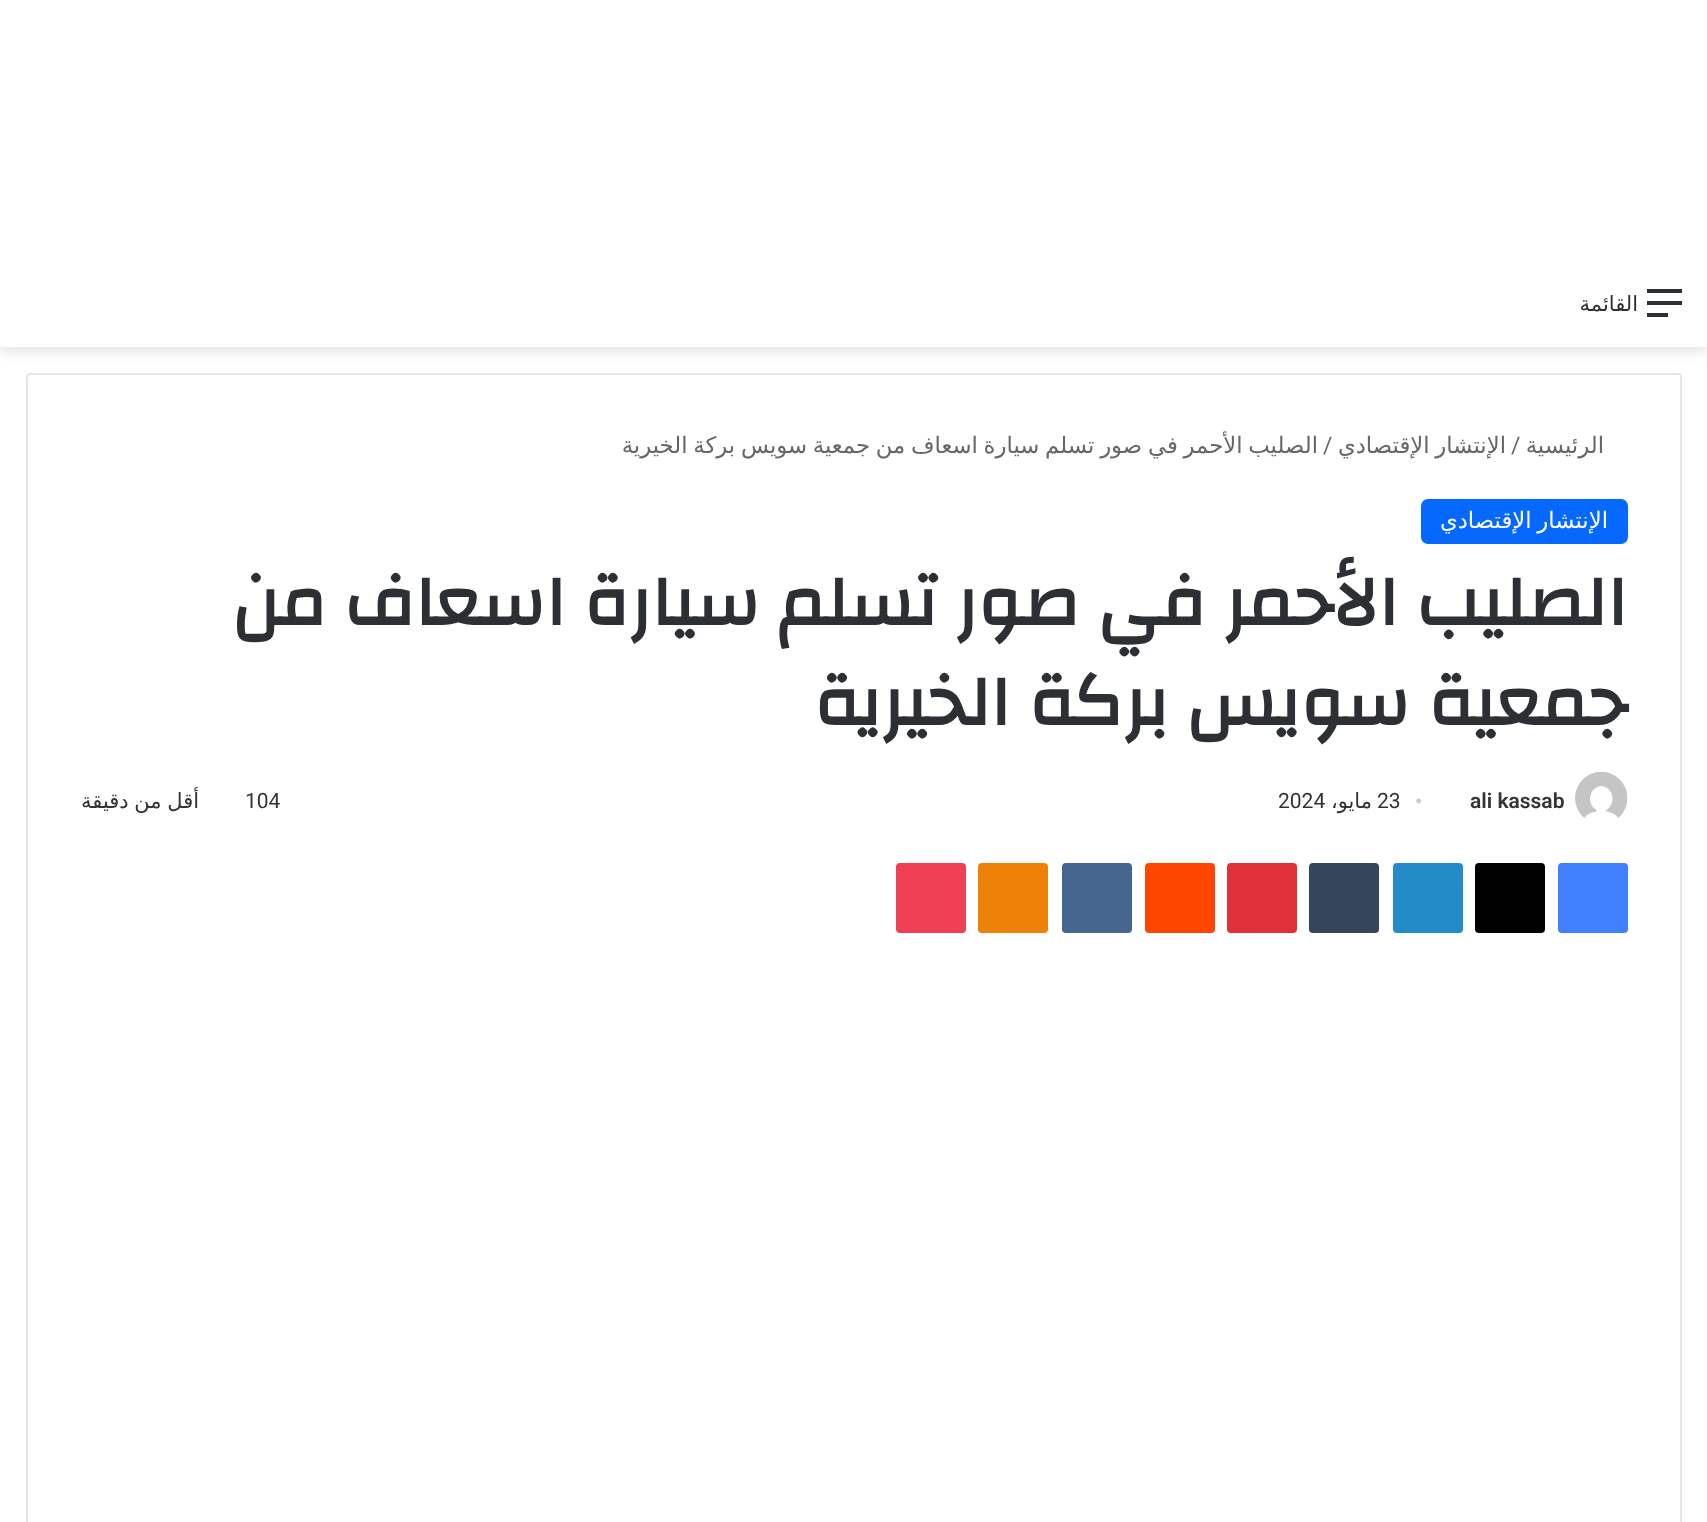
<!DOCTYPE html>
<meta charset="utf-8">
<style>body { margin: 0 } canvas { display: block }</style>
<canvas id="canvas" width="1707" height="1522"></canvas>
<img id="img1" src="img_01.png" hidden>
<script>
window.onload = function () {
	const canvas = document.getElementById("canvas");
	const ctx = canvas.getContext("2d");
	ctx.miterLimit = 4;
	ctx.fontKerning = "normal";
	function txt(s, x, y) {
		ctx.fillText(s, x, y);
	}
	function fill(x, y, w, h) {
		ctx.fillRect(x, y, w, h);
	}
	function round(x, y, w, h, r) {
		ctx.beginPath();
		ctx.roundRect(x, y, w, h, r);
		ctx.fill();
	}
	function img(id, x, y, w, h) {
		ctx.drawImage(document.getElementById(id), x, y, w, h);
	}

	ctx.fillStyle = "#FFFFFF";
	fill(0, 0, 1707, 1522);
	ctx.fillStyle = "rgba(0, 0, 0, 0.1)";
	ctx.filter = "blur(6px)";
	ctx.beginPath();
	ctx.rect(0, 5, 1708, 347);
	ctx.fill();
	ctx.filter = "none";
	ctx.fillStyle = "#FFFFFF";
	fill(0, 0, 1707, 347);
	ctx.fillStyle = "#2C2F34";
	fill(1647, 301, 35, 4);
	fill(1647, 289, 35, 4);
	fill(1647, 313, 21, 4);
	ctx.beginPath();
	ctx.roundRect(27, 374, 1654, 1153, 3);
	ctx.strokeStyle = "#E6E6E6";
	ctx.lineWidth = 2;
	ctx.stroke();
	ctx.fillStyle = "#0669FF";
	round(1421, 499, 207, 45, 7);
	img("img1", 1575, 772, 53, 46);
	ctx.fillStyle = "#4080FF";
	round(1558, 863, 70, 70, 4);
	ctx.fillStyle = "#000000";
	round(1475, 863, 70, 70, 4);
	ctx.fillStyle = "#238CC8";
	round(1393, 863, 70, 70, 4);
	ctx.fillStyle = "#35465C";
	round(1309, 863, 70, 70, 4);
	ctx.fillStyle = "#E13138";
	round(1227, 863, 70, 70, 4);
	ctx.fillStyle = "#FF4500";
	round(1145, 863, 70, 70, 4);
	ctx.fillStyle = "#45668E";
	round(1062, 863, 70, 70, 4);
	ctx.fillStyle = "#EE8208";
	round(978, 863, 70, 70, 4);
	ctx.fillStyle = "#EF4056";
	round(896, 863, 70, 70, 4);
	ctx.direction = "rtl";
	ctx.font = "21px DejaVu Sans";
	ctx.fillStyle = "#2C2F34";
	txt("القائمة", 1638, 311);
	ctx.font = "22.75px DejaVu Sans";
	ctx.fillStyle = "#666666";
	txt("الرئيسية", 1604, 453);
	ctx.direction = "ltr";
	ctx.font = "22.75px Roboto";
	txt("/", 1511, 453);
	ctx.wordSpacing = "-1.5px";
	ctx.direction = "rtl";
	ctx.font = "22.75px DejaVu Sans";
	txt("الإنتشار الإقتصادي", 1506, 453);
	ctx.wordSpacing = "0px";
	ctx.direction = "ltr";
	ctx.font = "22.75px Roboto";
	txt("/", 1323, 453);
	ctx.wordSpacing = "-1.5px";
	ctx.direction = "rtl";
	ctx.font = "22.75px DejaVu Sans";
	txt("الصليب الأحمر في صور تسلم سيارة اسعاف من جمعية سويس بركة الخيرية", 1318, 453);
	ctx.fillStyle = "#FFFFFF";
	txt("الإنتشار الإقتصادي", 1608, 528);
	ctx.wordSpacing = "0px";
	ctx.font = "bold 71.75px Changa";
	ctx.fillStyle = "#2C2F34";
	txt("الصليب الأحمر في صور تسلم سيارة اسعاف من", 1627, 625);
	txt("جمعية سويس بركة الخيرية", 1627, 725);
	ctx.direction = "ltr";
	ctx.font = "600 21px Roboto";
	ctx.fillStyle = "#333333";
	txt("ali kassab", 1470, 808);
	ctx.font = "21px Liberation Serif";
	ctx.fillStyle = "#CCCCCC";
	txt("•", 1415, 808);
	ctx.font = "21px Roboto";
	ctx.fillStyle = "#333333";
	txt("23", 1377, 808);
	ctx.direction = "rtl";
	ctx.font = "21px DejaVu Sans";
	txt("مايو،", 1372, 808);
	ctx.direction = "ltr";
	ctx.font = "21px Roboto";
	txt("2024", 1278, 808);
	txt("104", 245, 808);
	ctx.wordSpacing = "-1px";
	ctx.direction = "rtl";
	ctx.font = "21px DejaVu Sans";
	txt("أقل من دقيقة", 199, 808);
};
</script>
